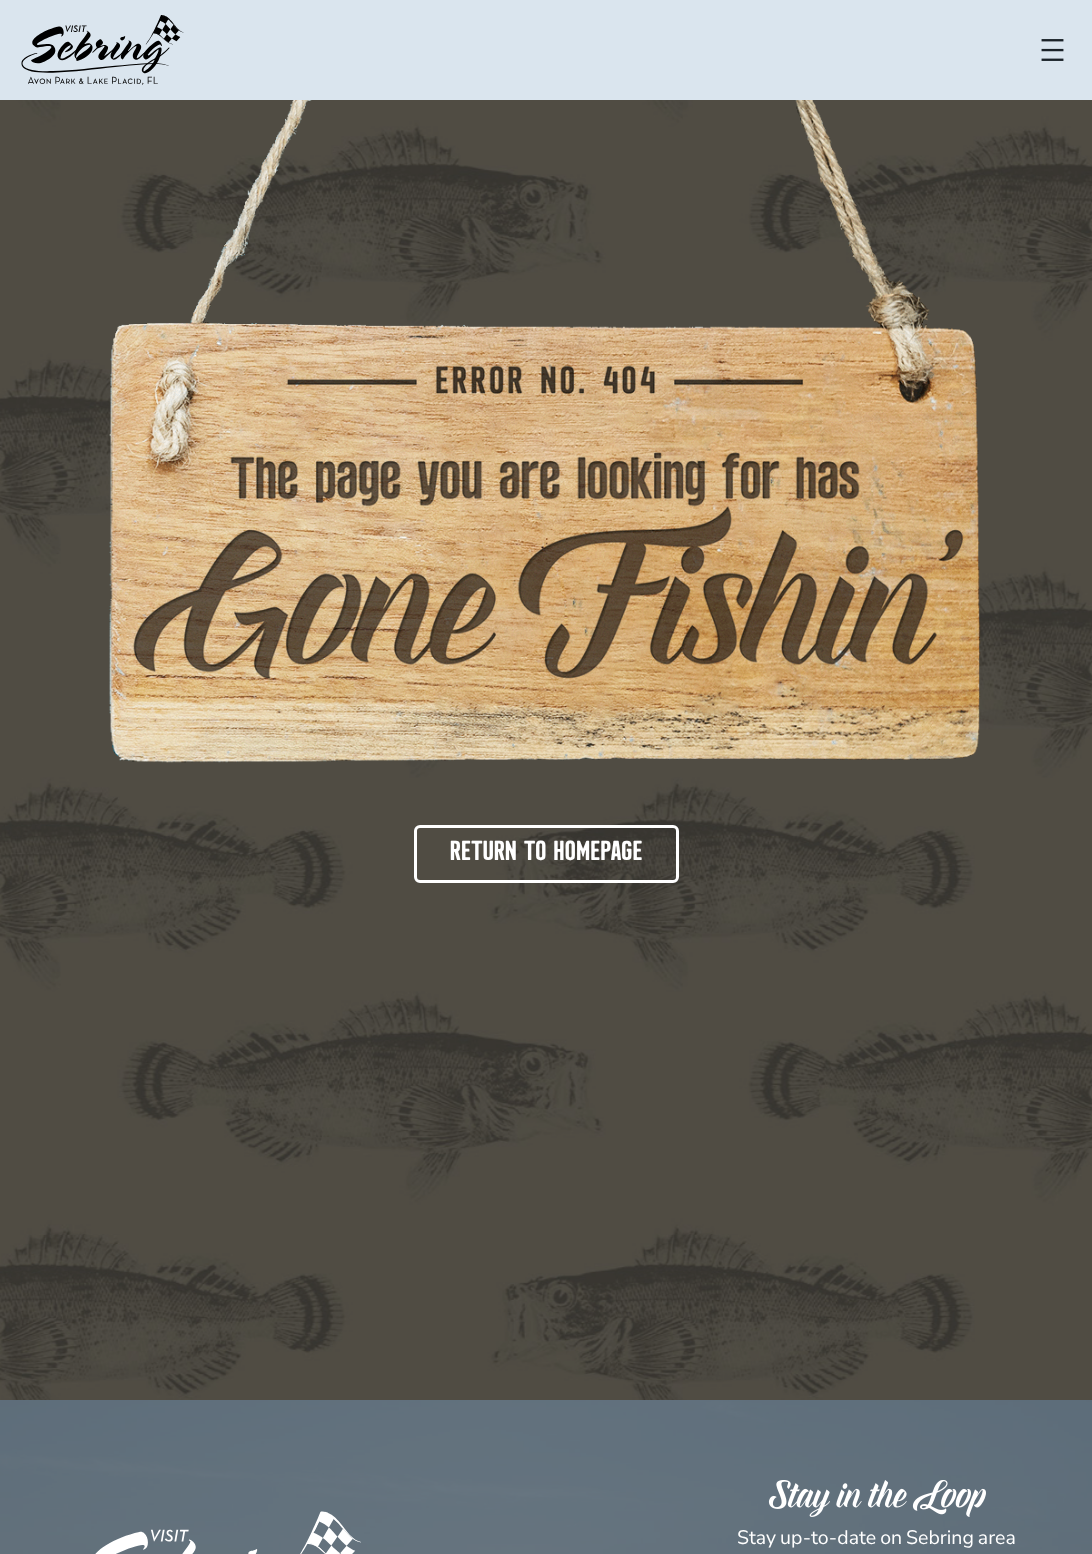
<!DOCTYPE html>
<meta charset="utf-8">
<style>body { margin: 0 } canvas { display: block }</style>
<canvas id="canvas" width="1092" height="1554"></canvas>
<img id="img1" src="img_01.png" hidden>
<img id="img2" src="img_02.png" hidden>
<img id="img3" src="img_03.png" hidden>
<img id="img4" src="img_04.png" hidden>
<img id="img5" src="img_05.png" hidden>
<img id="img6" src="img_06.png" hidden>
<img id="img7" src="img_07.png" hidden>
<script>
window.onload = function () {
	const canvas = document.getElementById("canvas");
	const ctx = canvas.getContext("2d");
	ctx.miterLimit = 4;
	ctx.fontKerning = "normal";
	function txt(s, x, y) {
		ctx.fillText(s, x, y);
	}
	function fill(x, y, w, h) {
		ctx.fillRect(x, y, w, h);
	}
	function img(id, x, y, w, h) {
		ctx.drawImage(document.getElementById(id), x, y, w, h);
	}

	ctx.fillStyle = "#FFFFFF";
	fill(0, 0, 1092, 1554);
	ctx.fillStyle = "#DAE5EE";
	fill(0, 0, 1092, 100);
	img("img1", 21, 15, 163, 70);
	img("img2", 1041, 39, 23, 22);
	img("img3", 0, 100, 1092, 1300);
	img("img4", 109, 100, 872, 663);
	ctx.beginPath();
	ctx.roundRect(415.5, 826.5, 262, 55, 4.5);
	ctx.strokeStyle = "#FFFFFF";
	ctx.lineWidth = 3;
	ctx.stroke();
	img("img5", 0, 1400, 1092, 154);
	img("img6", 95, 1511, 266, 43);
	img("img7", 768, 1480, 218, 37);
	ctx.font = "27.5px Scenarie";
	ctx.fillStyle = "#FFFFFF";
	txt("RETURN TO HOMEPAGE", 450, 860);
	ctx.wordSpacing = "-1px";
	ctx.font = "19.5px Nunito Sans";
	txt("Stay up-to-date on Sebring area", 737, 1544);
};
</script>
